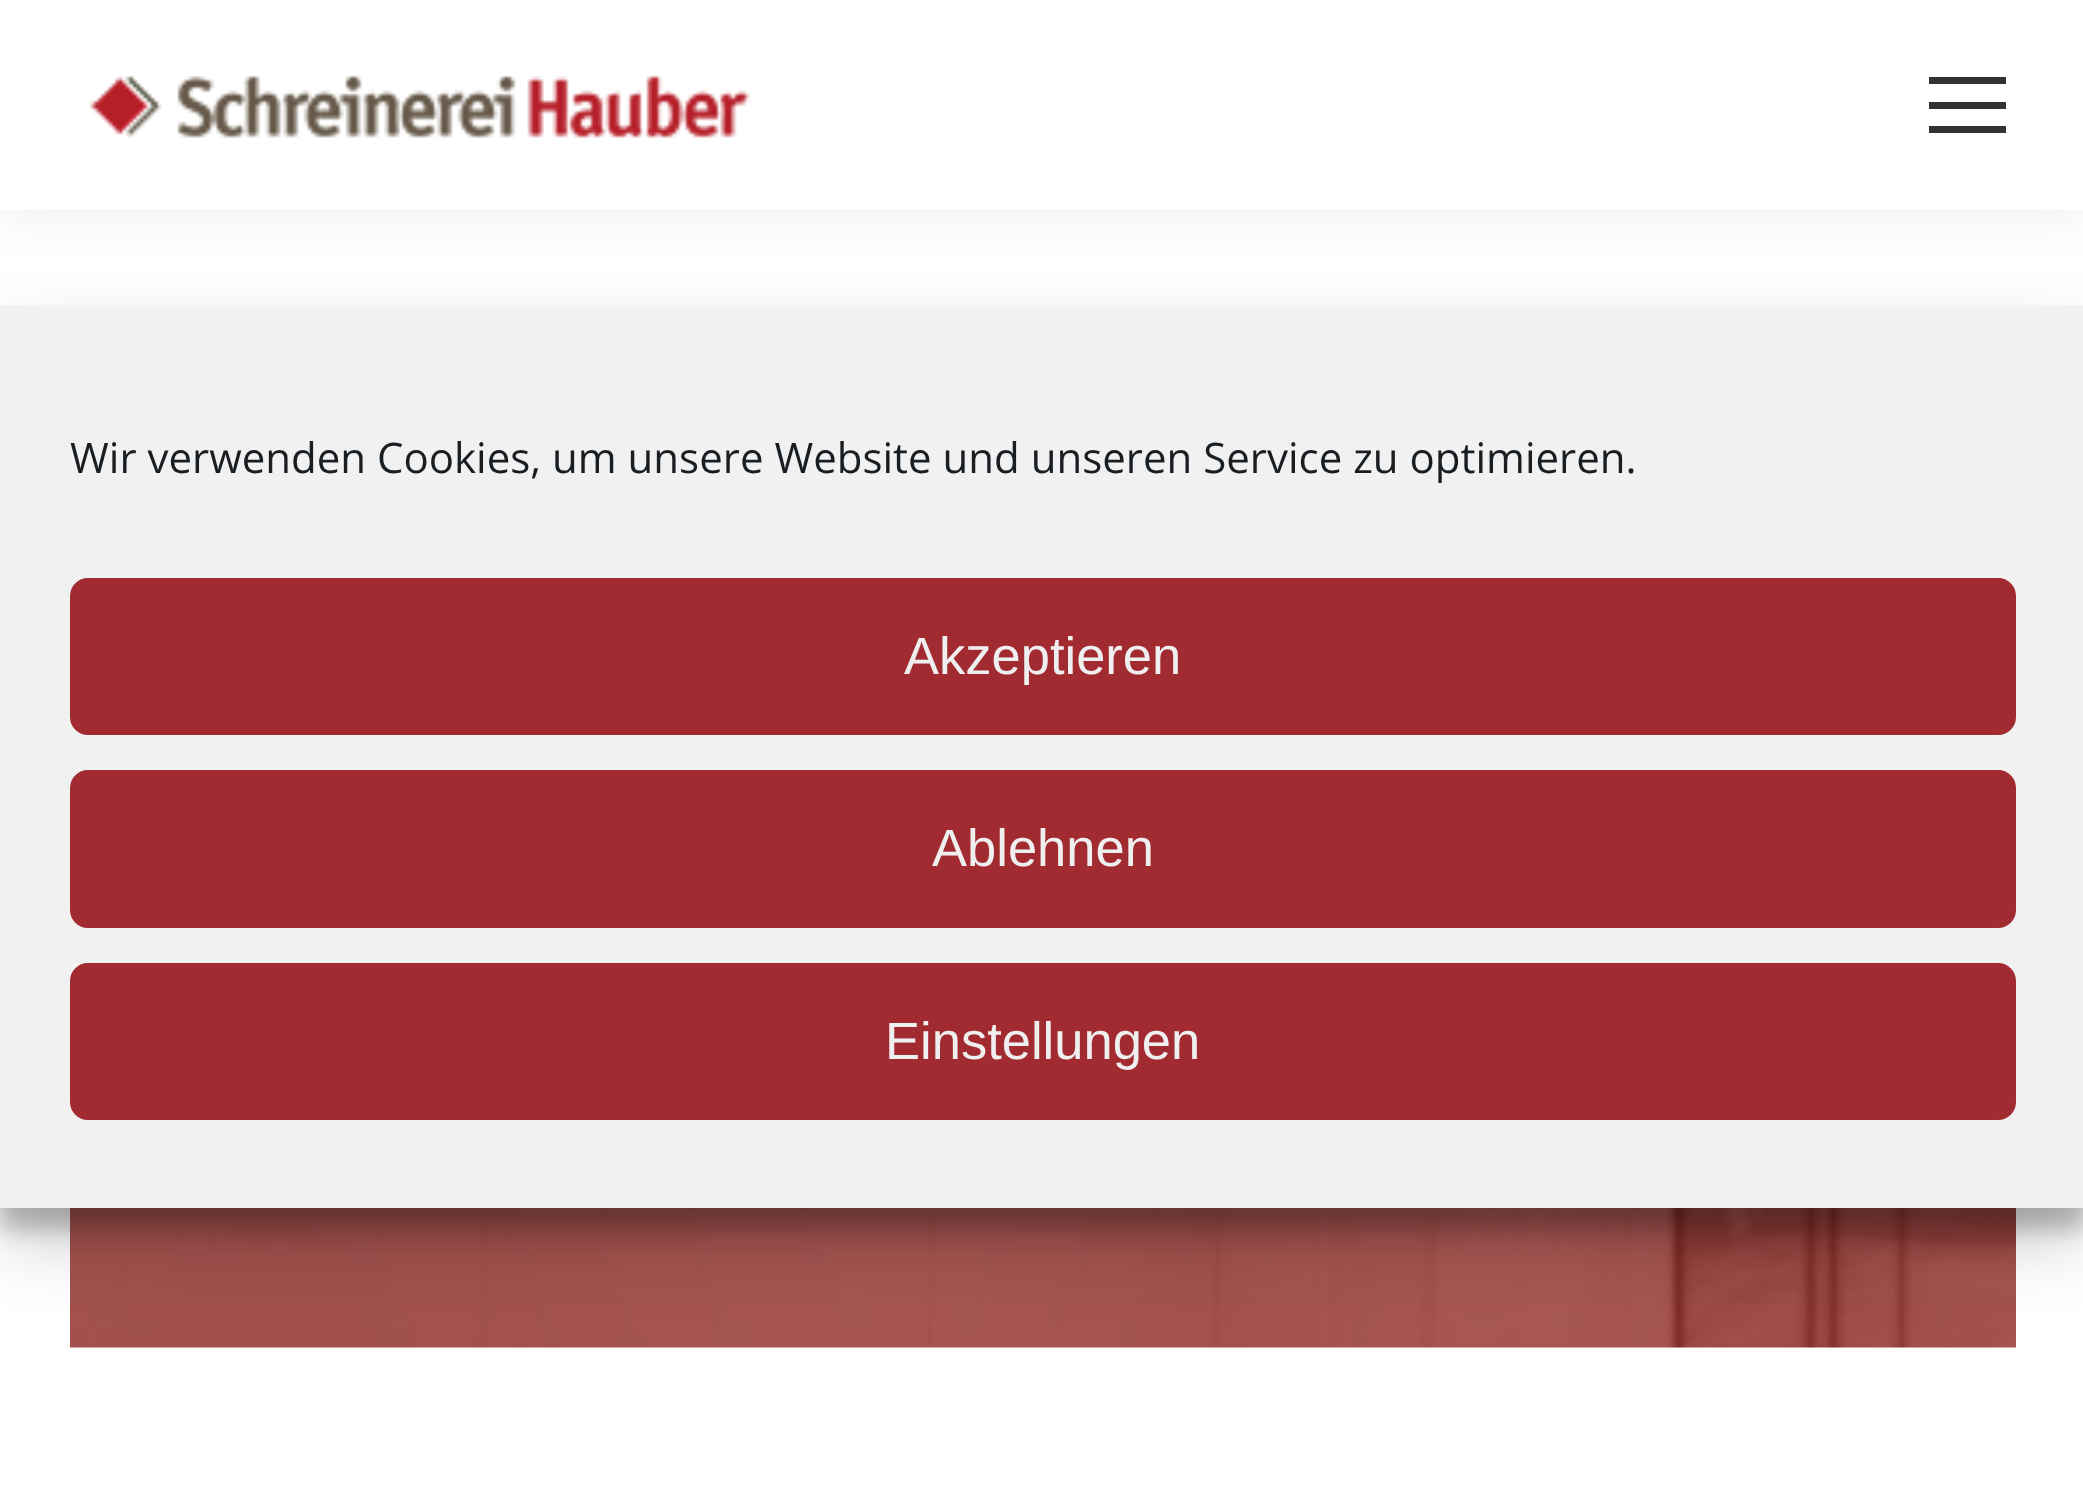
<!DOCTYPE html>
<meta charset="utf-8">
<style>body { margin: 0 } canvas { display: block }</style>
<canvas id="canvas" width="2083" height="1510"></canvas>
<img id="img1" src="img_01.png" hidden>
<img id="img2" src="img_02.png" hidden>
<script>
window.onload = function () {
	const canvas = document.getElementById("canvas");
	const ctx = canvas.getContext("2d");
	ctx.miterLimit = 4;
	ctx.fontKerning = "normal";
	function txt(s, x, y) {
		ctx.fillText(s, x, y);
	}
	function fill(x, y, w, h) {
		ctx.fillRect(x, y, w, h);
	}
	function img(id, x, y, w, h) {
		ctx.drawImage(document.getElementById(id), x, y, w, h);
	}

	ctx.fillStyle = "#FFFFFF";
	fill(0, 0, 2083, 1510);
	ctx.fillStyle = "rgba(0, 0, 0, 0.07)";
	ctx.filter = "blur(26px)";
	ctx.beginPath();
	ctx.rect(-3, -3, 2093, 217);
	ctx.fill();
	ctx.filter = "none";
	ctx.fillStyle = "#FFFFFF";
	fill(0, 0, 2083, 210);
	img("img1", 89, 75, 662, 63);
	ctx.fillStyle = "#333333";
	fill(1929, 77, 77, 7);
	fill(1929, 102, 77, 7);
	fill(1929, 126, 77, 7);
	img("img2", 70, 1208, 1946, 140);
	ctx.fillStyle = "rgba(0, 0, 0, 0.23)";
	ctx.filter = "blur(10.5px)";
	ctx.beginPath();
	ctx.rect(0, 326, 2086, 903);
	ctx.fill();
	ctx.filter = "none";
	ctx.fillStyle = "rgba(0, 0, 0, 0.19)";
	ctx.filter = "blur(35px)";
	ctx.beginPath();
	ctx.rect(0, 340, 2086, 903);
	ctx.fill();
	ctx.filter = "none";
	ctx.fillStyle = "#F1F1F1";
	fill(0, 305, 2083, 903);
	ctx.fillStyle = "#A12B31";
	ctx.beginPath();
	ctx.roundRect(72, 580, 1942, 153, 16);
	ctx.fill();
	ctx.strokeStyle = "#A12B31";
	ctx.lineWidth = 4;
	ctx.stroke();
	ctx.beginPath();
	ctx.roundRect(72, 772, 1942, 154, 16);
	ctx.fill();
	ctx.stroke();
	ctx.beginPath();
	ctx.roundRect(72, 965, 1942, 153, 16);
	ctx.fill();
	ctx.stroke();
	ctx.font = "42px Open Sans";
	ctx.fillStyle = "#191E23";
	txt("Wir verwenden Cookies, um unsere Website und unseren Service zu optimieren.", 70, 473);
	ctx.font = "52.5px Liberation Sans";
	ctx.fillStyle = "#EFEFEF";
	txt("Akzeptieren", 904, 674);
	txt("Ablehnen", 932, 866);
	txt("Einstellungen", 885, 1059);
};
</script>
